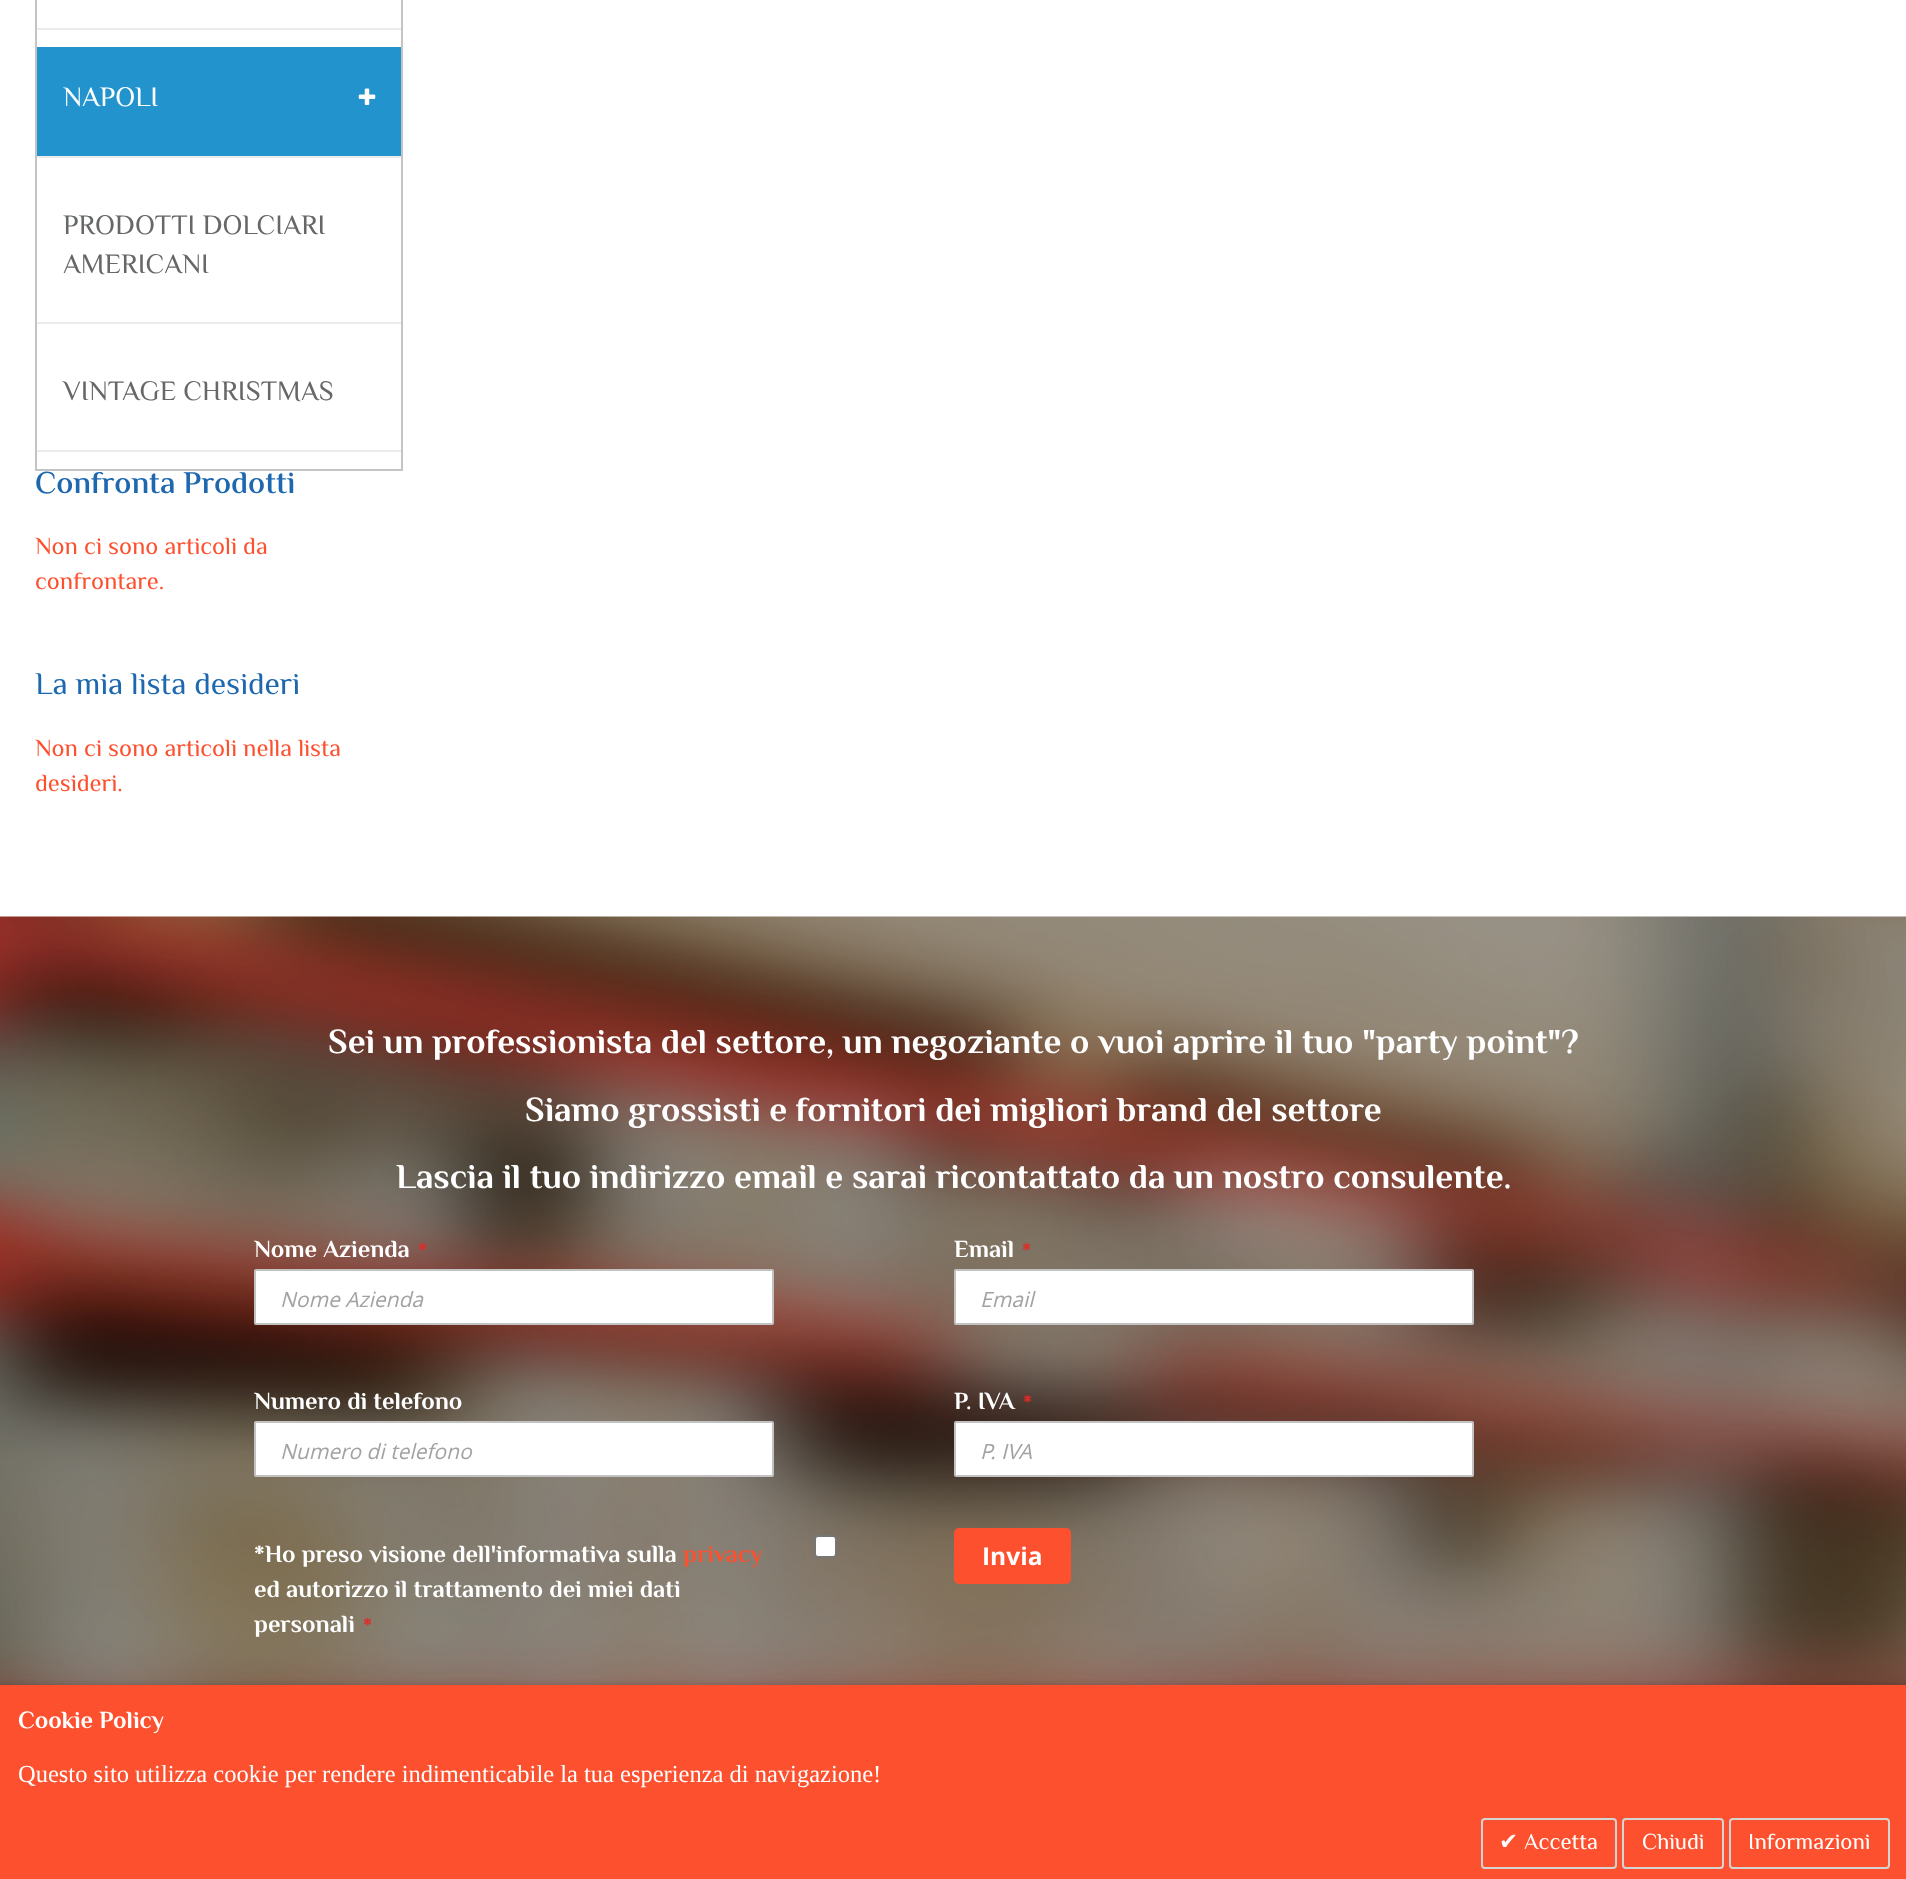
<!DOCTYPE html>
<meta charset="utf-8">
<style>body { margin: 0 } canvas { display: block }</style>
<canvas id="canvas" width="1906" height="1879"></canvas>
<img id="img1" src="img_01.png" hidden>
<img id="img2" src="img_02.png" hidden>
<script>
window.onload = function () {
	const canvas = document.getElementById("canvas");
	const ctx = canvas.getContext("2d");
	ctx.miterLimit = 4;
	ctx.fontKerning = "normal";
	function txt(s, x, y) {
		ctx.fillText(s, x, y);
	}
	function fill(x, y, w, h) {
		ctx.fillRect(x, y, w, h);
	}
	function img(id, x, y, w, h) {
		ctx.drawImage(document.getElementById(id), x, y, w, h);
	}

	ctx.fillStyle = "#FFFFFF";
	fill(0, 0, 1906, 1879);
	ctx.strokeStyle = "#C4C4C4";
	ctx.lineWidth = 2;
	ctx.strokeRect(36, -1, 366, 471);
	ctx.fillStyle = "#EBEBEB";
	fill(37, 28, 364, 2);
	ctx.fillStyle = "#2293CD";
	fill(37, 47, 364, 109);
	ctx.fillStyle = "#EBEBEB";
	fill(37, 156, 364, 2);
	img("img1", 358, 88, 18, 17);
	fill(37, 322, 364, 2);
	fill(37, 450, 364, 2);
	img("img2", 0, 916, 1906, 769);
	ctx.fillStyle = "#FFFFFF";
	ctx.beginPath();
	ctx.roundRect(255, 1270, 518, 54, 1);
	ctx.fill();
	ctx.strokeStyle = "#C2C2C2";
	ctx.stroke();
	ctx.beginPath();
	ctx.roundRect(955, 1270, 518, 54, 1);
	ctx.fill();
	ctx.stroke();
	ctx.beginPath();
	ctx.roundRect(255, 1422, 518, 54, 1);
	ctx.fill();
	ctx.stroke();
	ctx.beginPath();
	ctx.roundRect(955, 1422, 518, 54, 1);
	ctx.fill();
	ctx.stroke();
	ctx.beginPath();
	ctx.roundRect(815, 1536, 21, 21, 3);
	ctx.fill();
	ctx.strokeStyle = "#767676";
	ctx.stroke();
	ctx.fillStyle = "#FD502E";
	ctx.beginPath();
	ctx.roundRect(955, 1529, 115, 54, 4);
	ctx.fill();
	ctx.strokeStyle = "#FD502E";
	ctx.stroke();
	ctx.fillStyle = "rgba(0, 0, 0, 0.47)";
	ctx.filter = "blur(4.5px)";
	ctx.beginPath();
	ctx.rect(0, 1689, 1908, 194);
	ctx.fill();
	ctx.filter = "none";
	ctx.fillStyle = "#FD502E";
	fill(0, 1685, 1906, 194);
	ctx.beginPath();
	ctx.roundRect(1482, 1819, 134, 49, 3);
	ctx.strokeStyle = "#D4D4D4";
	ctx.stroke();
	ctx.beginPath();
	ctx.roundRect(1623, 1819, 100, 49, 3);
	ctx.stroke();
	ctx.beginPath();
	ctx.roundRect(1730, 1819, 159, 49, 3);
	ctx.stroke();
	ctx.font = "28px El Messiri";
	ctx.fillStyle = "#FFFFFF";
	txt("NAPOLI", 63, 106);
	ctx.fillStyle = "#666767";
	txt("PRODOTTI DOLCIARI", 63, 234);
	txt("AMERICANI", 63, 273);
	txt("VINTAGE CHRISTMAS", 63, 400);
	ctx.font = "600 31.5px El Messiri";
	ctx.fillStyle = "#1D68AF";
	txt("Confronta Prodotti", 35, 493);
	ctx.font = "24.5px El Messiri";
	ctx.fillStyle = "#FD502E";
	txt("Non ci sono articoli da", 35, 554);
	txt("confrontare.", 35, 589);
	ctx.font = "31.5px El Messiri";
	ctx.fillStyle = "#1D68AF";
	txt("La mia lista desideri", 35, 694);
	ctx.font = "24.5px El Messiri";
	ctx.fillStyle = "#FD502E";
	txt("Non ci sono articoli nella lista", 35, 756);
	txt("desideri.", 35, 791);
	ctx.font = "bold 35px El Messiri";
	ctx.fillStyle = "#FFFFFF";
	txt("Sei un professionista del settore, un negoziante o vuoi aprire il tuo \"party point\"?", 328, 1053);
	txt("Siamo grossisti e fornitori dei migliori brand del settore", 525, 1121);
	txt("Lascia il tuo indirizzo email e sarai ricontattato da un nostro consulente.", 396, 1188);
	ctx.font = "bold 24.5px El Messiri";
	txt("Nome Azienda", 254, 1257);
	ctx.font = "bold 21px El Messiri";
	ctx.fillStyle = "#E02B27";
	txt("*", 418, 1257);
	ctx.font = "italic 21px Open Sans";
	ctx.fillStyle = "#A2A2A2";
	txt("Nome Azienda", 280, 1307);
	ctx.font = "bold 24.5px El Messiri";
	ctx.fillStyle = "#FFFFFF";
	txt("Email", 954, 1257);
	ctx.font = "bold 21px El Messiri";
	ctx.fillStyle = "#E02B27";
	txt("*", 1022, 1257);
	ctx.font = "italic 21px Open Sans";
	ctx.fillStyle = "#A2A2A2";
	txt("Email", 980, 1307);
	ctx.font = "bold 24.5px El Messiri";
	ctx.fillStyle = "#FFFFFF";
	txt("Numero di telefono", 254, 1409);
	ctx.font = "italic 21px Open Sans";
	ctx.fillStyle = "#A2A2A2";
	txt("Numero di telefono", 280, 1459);
	ctx.font = "bold 24.5px El Messiri";
	ctx.fillStyle = "#FFFFFF";
	txt("P. IVA", 954, 1409);
	ctx.font = "bold 21px El Messiri";
	ctx.fillStyle = "#E02B27";
	txt("*", 1023, 1409);
	ctx.font = "italic 21px Open Sans";
	ctx.fillStyle = "#A2A2A2";
	txt("P. IVA", 980, 1459);
	ctx.font = "bold 24.5px El Messiri";
	ctx.fillStyle = "#FFFFFF";
	txt("*Ho preso visione dell'informativa sulla", 254, 1562);
	ctx.fillStyle = "#FD502E";
	txt("privacy", 683, 1562);
	ctx.fillStyle = "#FFFFFF";
	txt("ed autorizzo il trattamento dei miei dati", 254, 1597);
	txt("personali", 254, 1632);
	ctx.font = "bold 21px El Messiri";
	ctx.fillStyle = "#E02B27";
	txt("*", 363, 1632);
	ctx.font = "bold 24.5px Open Sans";
	ctx.fillStyle = "#FFFFFF";
	txt("Invia", 982, 1565);
	ctx.font = "bold 24.5px El Messiri";
	txt("Cookie Policy", 18, 1728);
	ctx.font = "24.5px Liberation Serif";
	txt("Questo sito utilizza cookie per rendere indimenticabile la tua esperienza di navigazione!", 18, 1782);
	ctx.font = "22.75px DejaVu Sans";
	txt("✔", 1499, 1849);
	ctx.font = "22.75px El Messiri";
	txt("Accetta", 1524, 1849);
	txt("Chiudi", 1642, 1849);
	txt("Informazioni", 1748, 1849);
};
</script>
